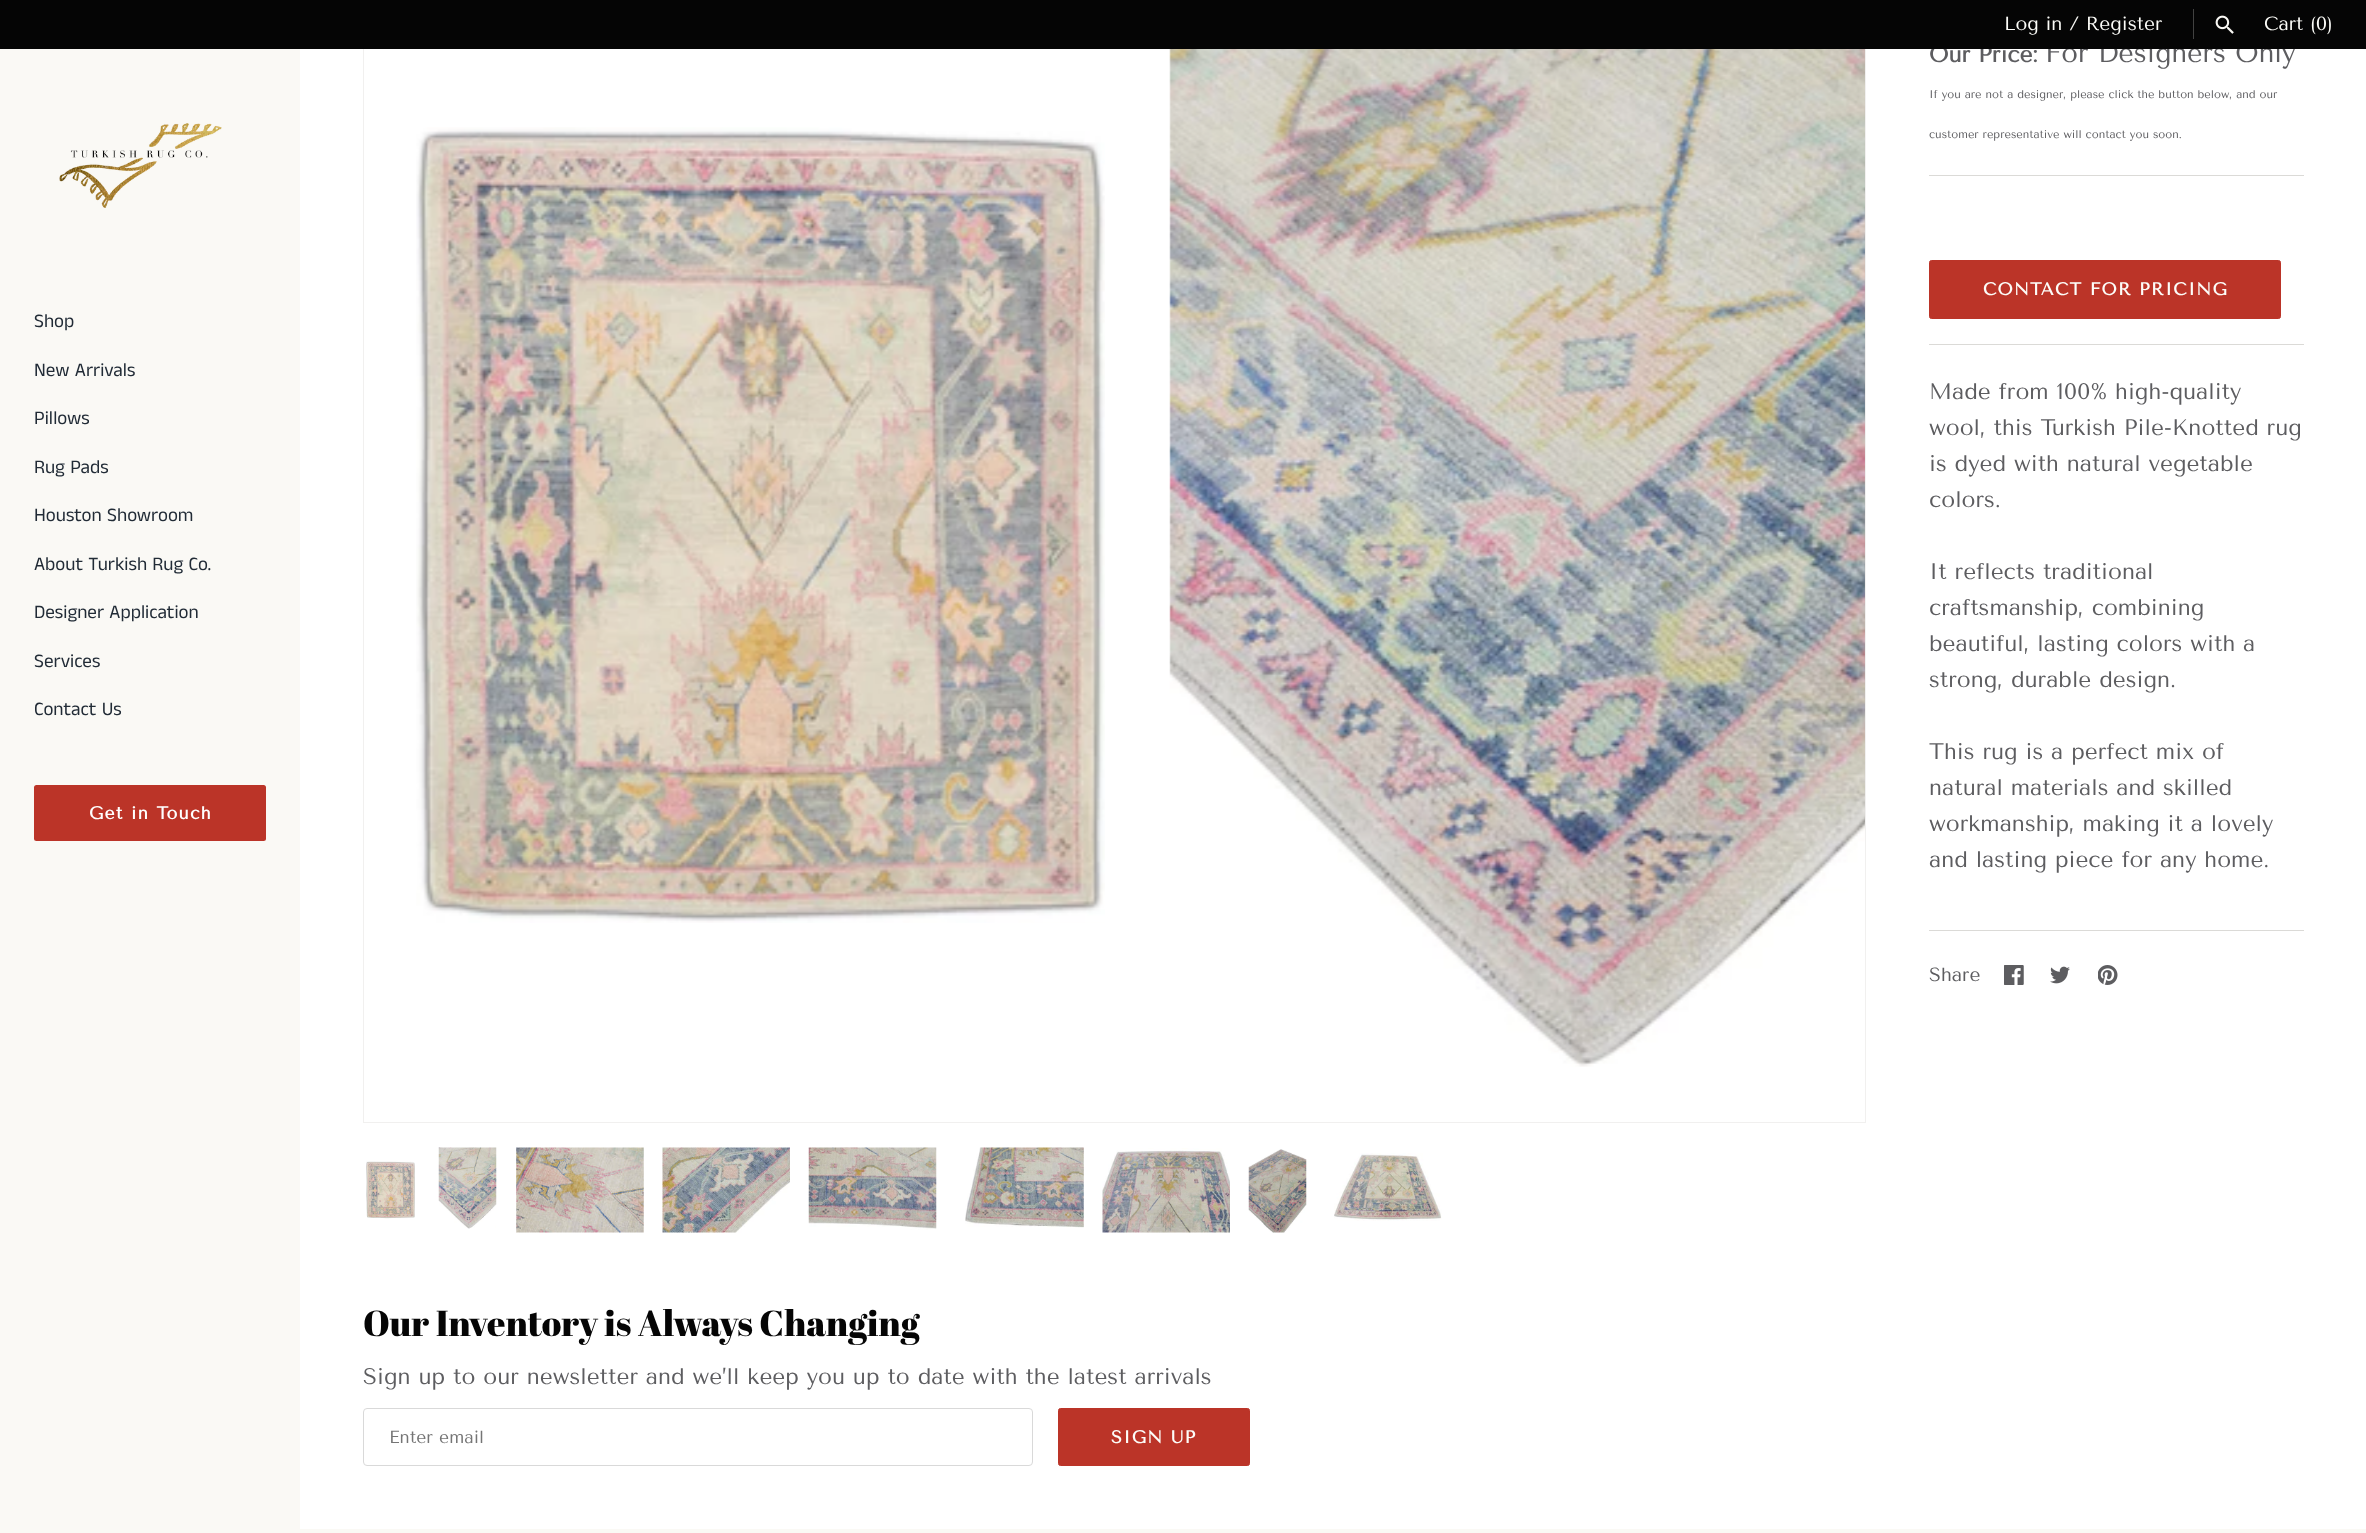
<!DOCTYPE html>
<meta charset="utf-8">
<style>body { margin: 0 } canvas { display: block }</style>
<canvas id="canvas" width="2366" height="1533"></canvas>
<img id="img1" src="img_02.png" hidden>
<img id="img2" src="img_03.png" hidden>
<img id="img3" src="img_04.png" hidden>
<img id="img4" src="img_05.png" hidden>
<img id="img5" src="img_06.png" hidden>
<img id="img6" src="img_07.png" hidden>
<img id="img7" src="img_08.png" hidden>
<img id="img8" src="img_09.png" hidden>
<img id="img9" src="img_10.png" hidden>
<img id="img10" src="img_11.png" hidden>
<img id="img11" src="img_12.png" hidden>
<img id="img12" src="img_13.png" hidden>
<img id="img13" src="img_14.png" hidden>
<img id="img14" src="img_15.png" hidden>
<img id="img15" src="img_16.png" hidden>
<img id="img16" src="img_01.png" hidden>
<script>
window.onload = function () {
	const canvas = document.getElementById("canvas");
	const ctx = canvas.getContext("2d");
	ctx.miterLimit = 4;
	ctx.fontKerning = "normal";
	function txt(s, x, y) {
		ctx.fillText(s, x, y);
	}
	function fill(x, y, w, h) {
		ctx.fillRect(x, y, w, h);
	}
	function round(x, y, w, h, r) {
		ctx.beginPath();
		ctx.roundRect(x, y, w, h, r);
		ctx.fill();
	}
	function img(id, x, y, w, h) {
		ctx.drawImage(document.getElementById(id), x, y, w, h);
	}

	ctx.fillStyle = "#FFFFFF";
	fill(0, 0, 2366, 1533);
	ctx.fillStyle = "#FAF9F5";
	fill(0, 49, 300, 1484);
	img("img1", 59, 123, 163, 85);
	ctx.fillStyle = "#BB3428";
	round(34, 785, 232, 56, 2.5);
	ctx.strokeStyle = "#F1F0EF";
	ctx.strokeRect(363.5, -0.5, 1502, 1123);
	img("img2", 416, 127, 689, 796);
	img("img3", 1169, 49, 696, 1018);
	img("img4", 366, 1161, 49, 58);
	img("img5", 438, 1147, 59, 82);
	img("img6", 516, 1147, 128, 86);
	img("img7", 662, 1147, 128, 86);
	img("img8", 808, 1147, 129, 83);
	img("img9", 965, 1147, 119, 81);
	img("img10", 1102, 1148, 128, 85);
	img("img11", 1248, 1149, 59, 84);
	img("img12", 1334, 1153, 108, 68);
	ctx.fillStyle = "#DBDAD7";
	fill(1929, 175, 375, 1);
	ctx.fillStyle = "#BB3428";
	ctx.beginPath();
	ctx.roundRect(1929.5, 260.5, 351, 58, 2);
	ctx.fill();
	ctx.strokeStyle = "#BB3428";
	ctx.stroke();
	ctx.fillStyle = "#DBDAD7";
	fill(1929, 344, 375, 1);
	fill(1929, 930, 375, 1);
	img("img13", 2004, 965, 20, 20);
	img("img14", 2050, 966, 20, 18);
	img("img15", 2098, 965, 20, 20);
	ctx.beginPath();
	ctx.roundRect(363.5, 1408.5, 669, 57, 3.5);
	ctx.strokeStyle = "#D9D9D9";
	ctx.stroke();
	ctx.fillStyle = "#BB3428";
	ctx.beginPath();
	ctx.roundRect(1058.5, 1408.5, 191, 57, 2);
	ctx.fill();
	ctx.strokeStyle = "#BB3428";
	ctx.stroke();
	ctx.fillStyle = "#FAF9F5";
	fill(300, 1529, 2066, 4);
	ctx.font = "19.1px Anek Tamil";
	ctx.fillStyle = "#212B36";
	txt("Shop", 34, 327);
	txt("New Arrivals", 34, 376);
	txt("Pillows", 34, 424);
	txt("Rug Pads", 34, 473);
	txt("Houston Showroom", 34, 521);
	txt("About Turkish Rug Co.", 34, 570);
	txt("Designer Application", 34, 618);
	txt("Services", 34, 667);
	txt("Contact Us", 34, 715);
	ctx.letterSpacing = "1.25px";
	ctx.font = "bold 17.5px Tenor Sans";
	ctx.fillStyle = "#FFFFFF";
	txt("Get in Touch", 89, 819);
	ctx.letterSpacing = "0px";
	ctx.font = "bold 22.5px Tenor Sans";
	ctx.fillStyle = "#5D5D60";
	txt("Our Price:", 1929, 62);
	ctx.font = "27px Tenor Sans";
	txt("For Designers Only", 2045, 62);
	ctx.fillStyle = "#050505";
	fill(0, 0, 2366, 49);
	img("img16", 2215, 15, 19, 19);
	ctx.fillStyle = "#424241";
	fill(2193, 9, 1, 30);
	ctx.font = "19.1px Tenor Sans";
	ctx.fillStyle = "#FDFDF9";
	txt("Log in / Register", 2004, 30);
	txt("Cart (0)", 2264, 30);
	ctx.font = "11.25px Tenor Sans";
	ctx.fillStyle = "#5D5D60";
	txt("If you are not a designer, please click the button below, and our", 1929, 98);
	txt("customer representative will contact you soon.", 1929, 138);
	ctx.letterSpacing = "1.25px";
	ctx.font = "bold 17.5px Tenor Sans";
	ctx.fillStyle = "#FDFDF9";
	txt("CONTACT FOR PRICING", 1983, 295);
	ctx.letterSpacing = "0px";
	ctx.font = "22.5px Tenor Sans";
	ctx.fillStyle = "#5D5D60";
	txt("Made from 100% high-quality", 1929, 399);
	txt("wool, this Turkish Pile-Knotted rug", 1929, 435);
	txt("is dyed with natural vegetable", 1929, 471);
	txt("colors.", 1929, 507);
	txt("It reflects traditional", 1929, 579);
	txt("craftsmanship, combining", 1929, 615);
	txt("beautiful, lasting colors with a", 1929, 651);
	txt("strong, durable design.", 1929, 687);
	txt("This rug is a perfect mix of", 1929, 759);
	txt("natural materials and skilled", 1929, 795);
	txt("workmanship, making it a lovely", 1929, 831);
	txt("and lasting piece for any home.", 1929, 867);
	ctx.font = "19.1px Tenor Sans";
	txt("Share", 1929, 981);
	ctx.font = "36px Abril Fatface";
	ctx.fillStyle = "#050505";
	txt("Our Inventory is Always Changing", 363, 1336);
	ctx.font = "22.5px Tenor Sans";
	ctx.fillStyle = "#5D5D60";
	txt("Sign up to our newsletter and we’ll keep you up to date with the latest arrivals", 363, 1384);
	ctx.font = "17.5px Tenor Sans";
	ctx.fillStyle = "#757575";
	txt("Enter email", 389, 1443);
	ctx.letterSpacing = "1.25px";
	ctx.font = "bold 17.5px Tenor Sans";
	ctx.fillStyle = "#FDFDF9";
	txt("SIGN UP", 1111, 1443);
};
</script>
